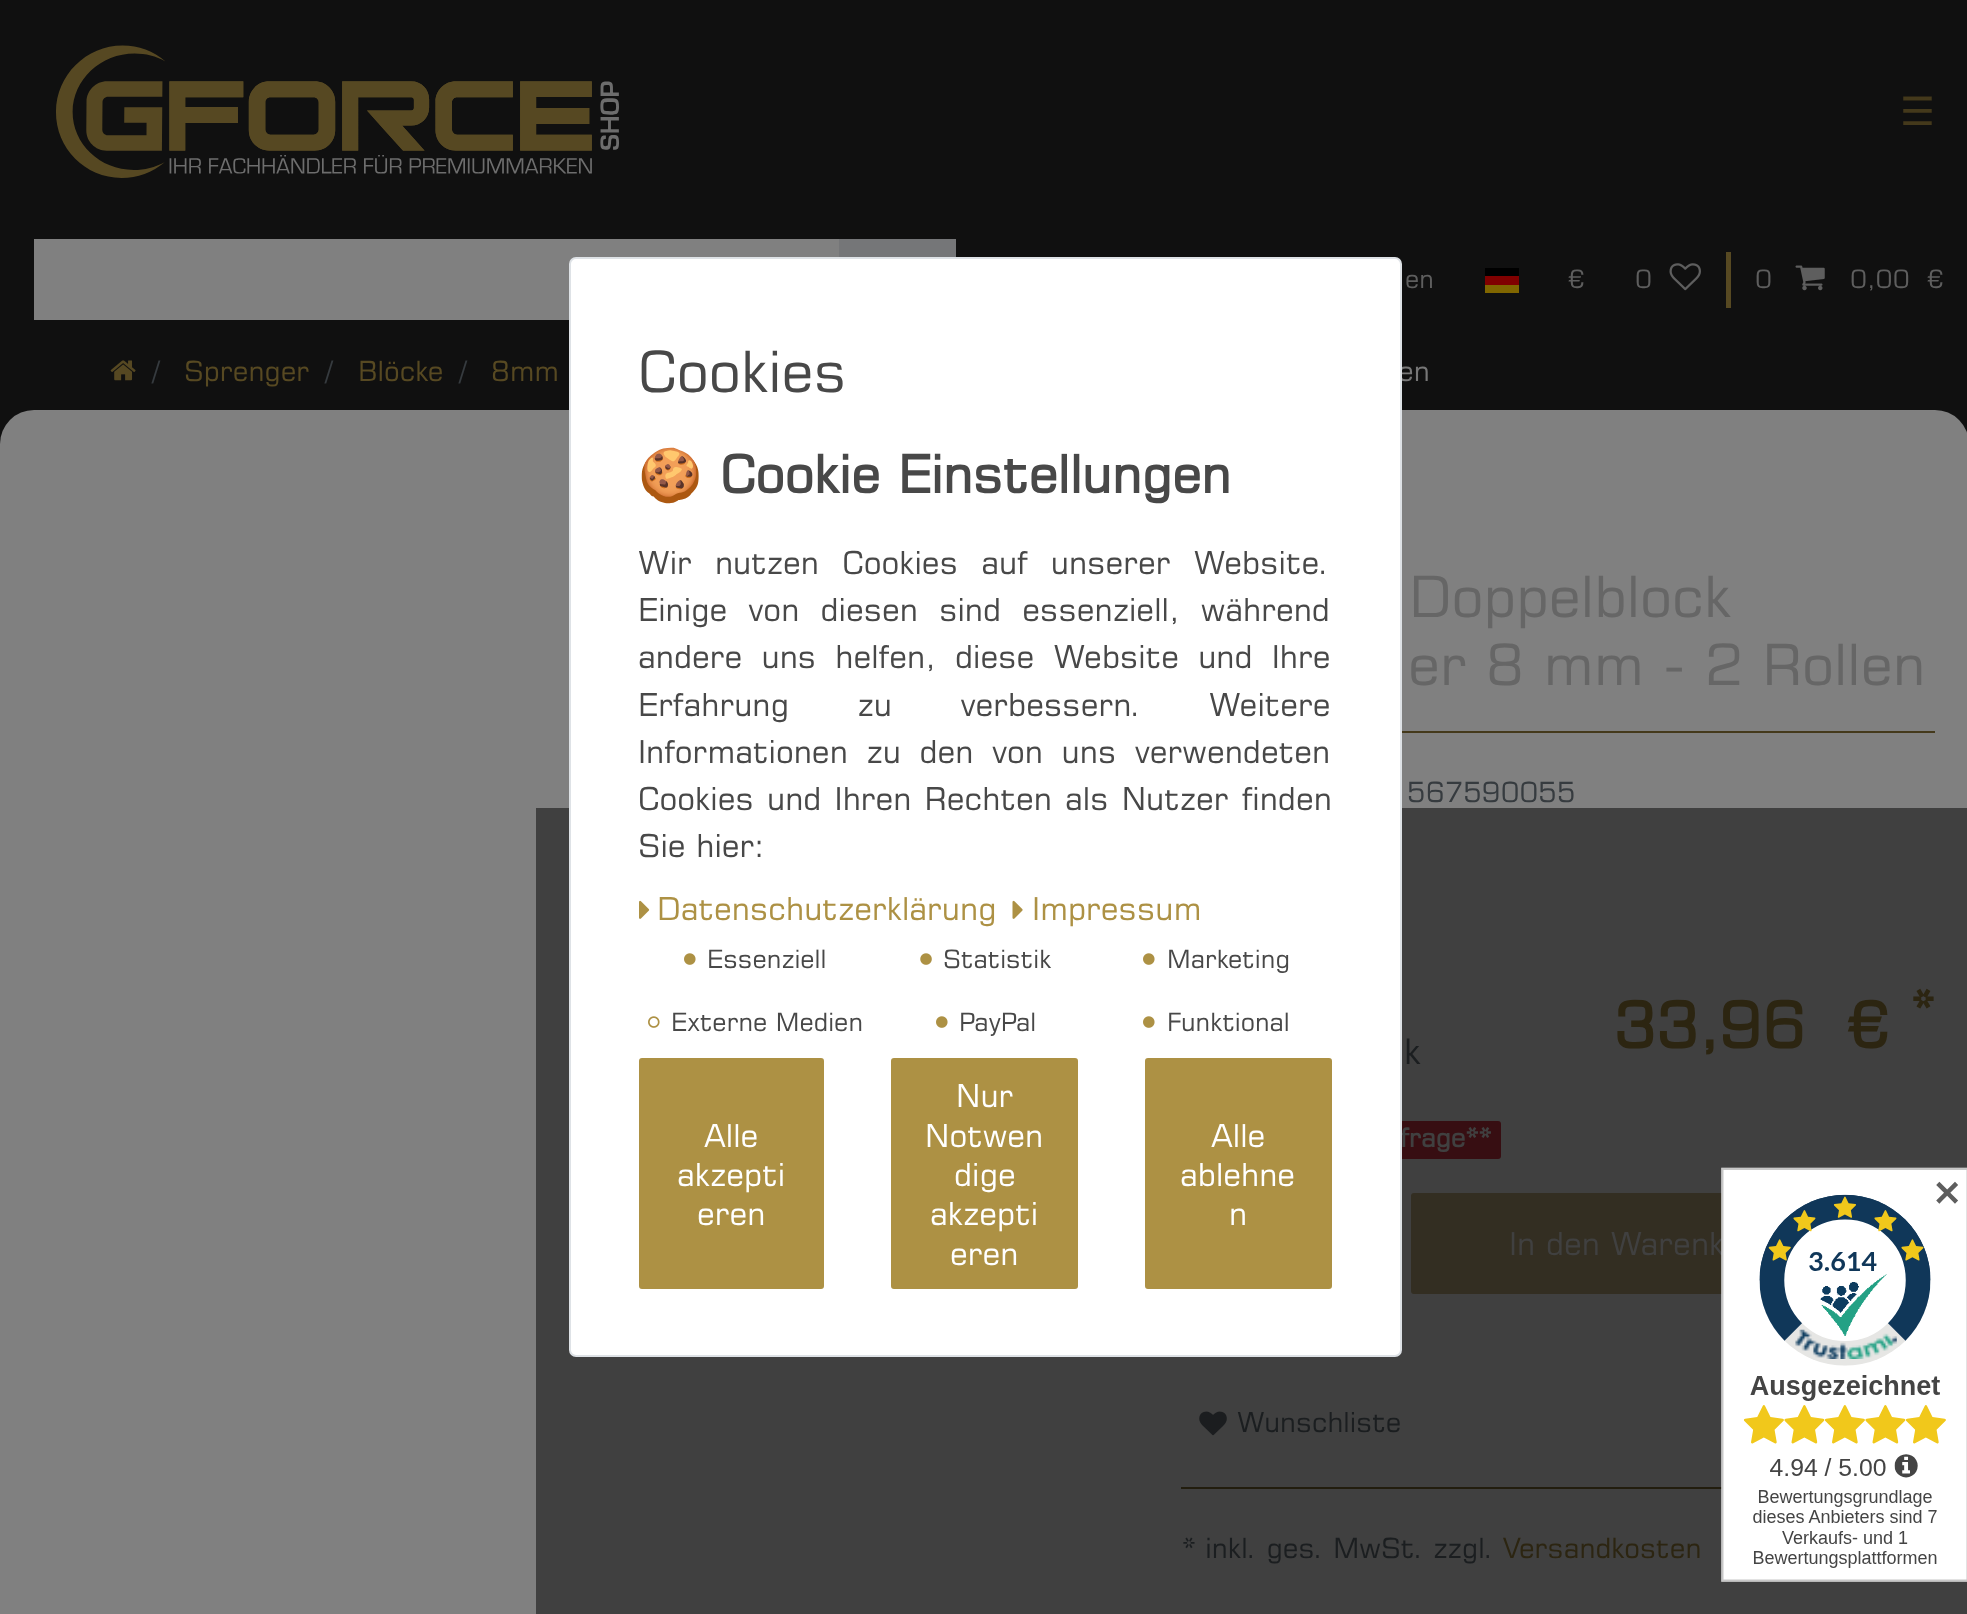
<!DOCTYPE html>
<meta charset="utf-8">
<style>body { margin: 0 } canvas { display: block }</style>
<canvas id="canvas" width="1967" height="1614"></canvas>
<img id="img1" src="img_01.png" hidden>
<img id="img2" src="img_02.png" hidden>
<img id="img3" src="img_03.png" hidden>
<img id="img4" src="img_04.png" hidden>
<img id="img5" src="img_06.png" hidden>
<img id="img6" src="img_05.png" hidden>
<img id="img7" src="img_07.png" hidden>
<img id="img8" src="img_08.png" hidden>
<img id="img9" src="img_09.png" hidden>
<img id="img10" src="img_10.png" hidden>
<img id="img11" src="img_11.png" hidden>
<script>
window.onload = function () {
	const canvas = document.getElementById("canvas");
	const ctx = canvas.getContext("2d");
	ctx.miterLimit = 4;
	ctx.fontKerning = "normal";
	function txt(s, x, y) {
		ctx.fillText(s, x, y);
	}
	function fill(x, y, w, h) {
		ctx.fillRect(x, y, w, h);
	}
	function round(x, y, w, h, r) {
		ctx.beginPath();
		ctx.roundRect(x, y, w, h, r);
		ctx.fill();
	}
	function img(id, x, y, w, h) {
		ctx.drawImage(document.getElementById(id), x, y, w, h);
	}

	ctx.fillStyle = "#101010";
	fill(0, 0, 1967, 1614);
	img("img1", 56, 45, 563, 133);
	ctx.fillStyle = "#808080";
	fill(34, 239, 805, 81);
	ctx.fillStyle = "#757678";
	fill(839, 239, 117, 18);
	ctx.fillStyle = "#806600";
	fill(1485, 285, 34, 8);
	ctx.fillStyle = "#000000";
	fill(1485, 268, 34, 8);
	ctx.fillStyle = "#800000";
	fill(1485, 276, 34, 9);
	img("img2", 1669, 263, 32, 28);
	ctx.fillStyle = "#574922";
	fill(1726, 252, 5, 56);
	img("img3", 1795, 265, 30, 26);
	img("img4", 110, 360, 26, 21);
	ctx.fillStyle = "#808080";
	round(0, 410, 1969, 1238, 34);
	ctx.fillStyle = "#404040";
	fill(536, 808, 1431, 806);
	ctx.fillStyle = "#44391B";
	fill(1402, 731, 533, 2);
	ctx.fillStyle = "#370E12";
	round(1181, 1121, 320, 38, 3);
	ctx.fillStyle = "#332E22";
	ctx.beginPath();
	ctx.roundRect(1412, 1194, 488, 99, 2);
	ctx.fill();
	ctx.strokeStyle = "#332E22";
	ctx.lineWidth = 2;
	ctx.stroke();
	img("img5", 1199, 1411, 28, 25);
	ctx.fillStyle = "#221D0E";
	fill(1181, 1487, 541, 2);
	ctx.font = "39px DejaVu Sans";
	ctx.fillStyle = "#44391B";
	txt("☰", 1900, 125);
	ctx.font = "25.25px 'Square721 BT'";
	ctx.fillStyle = "#5E5E5E";
	txt("en", 1405, 288);
	txt("€", 1568, 288);
	txt("0", 1635, 288);
	txt("0", 1755, 288);
	txt("0,00", 1850, 288);
	txt("€", 1927, 288);
	ctx.font = "27.75px 'Square721 BT'";
	ctx.fillStyle = "#363B3F";
	txt("/", 152, 381);
	ctx.fillStyle = "#574922";
	txt("Sprenger", 184, 381);
	ctx.fillStyle = "#363B3F";
	txt("/", 325, 381);
	ctx.fillStyle = "#574922";
	txt("Blöcke", 358, 381);
	ctx.fillStyle = "#363B3F";
	txt("/", 459, 381);
	ctx.fillStyle = "#574922";
	txt("8mm", 491, 381);
	ctx.fillStyle = "#777777";
	txt("en", 1398, 381);
	ctx.font = "56.75px 'Square721 BT'";
	ctx.fillStyle = "#666666";
	txt("Doppelblock", 1409, 617);
	txt("er 8 mm - 2 Rollen", 1408, 685);
	ctx.font = "27.75px 'Square721 BT'";
	ctx.fillStyle = "#363B3F";
	txt("567590055", 1407, 802);
	ctx.font = "35px 'Square721 BT'";
	ctx.fillStyle = "#1B1E20";
	txt("k", 1404, 1064);
	ctx.font = "bold 63px 'Square721 BT'";
	ctx.fillStyle = "#2C2511";
	txt("33,96", 1613, 1048);
	txt("€", 1847, 1048);
	ctx.font = "bold 47px 'Square721 BT'";
	txt("*", 1911, 1025);
	ctx.font = "bold 26px 'Square721 BT'";
	ctx.fillStyle = "#404040";
	txt("frage**", 1400, 1147);
	ctx.font = "31.5px 'Square721 BT'";
	txt("In den Warenk", 1509, 1255);
	img("img6", 1721, 1167, 246, 415);
	ctx.font = "bold 35px DejaVu Sans";
	ctx.fillStyle = "#5E5E5E";
	txt("✕", 1932, 1206);
	ctx.font = "27.5px 'Square721 BT'";
	ctx.fillStyle = "#1B1E20";
	txt("Wunschliste", 1237, 1432);
	ctx.font = "27.75px 'Square721 BT'";
	txt("* inkl. ges. MwSt. zzgl.", 1182, 1558);
	ctx.fillStyle = "#2C2511";
	txt("Versandkosten", 1503, 1558);
	ctx.fillStyle = "#FFFFFF";
	ctx.beginPath();
	ctx.roundRect(570, 258, 831, 1098, 6);
	ctx.fill();
	ctx.strokeStyle = "#DEE2E6";
	ctx.stroke();
	ctx.font = "56.75px 'Square721 BT'";
	ctx.fillStyle = "#484848";
	txt("Cookies", 638, 392);
	ctx.font = "bold 51.75px Noto Color Emoji";
	txt("🍪", 638, 493);
	ctx.font = "bold 51.75px 'Square721 BT'";
	txt("Cookie Einstellungen", 720, 493);
	ctx.wordSpacing = "12.5px";
	ctx.font = "31.5px 'Square721 BT'";
	txt("Wir nutzen Cookies auf unserer Website.", 638, 574);
	ctx.wordSpacing = "10.5px";
	txt("Einige von diesen sind essenziell, während", 638, 621);
	ctx.wordSpacing = "8.5px";
	txt("andere uns helfen, diese Website und Ihre", 638, 668);
	ctx.wordSpacing = "58px";
	txt("Erfahrung zu verbessern.", 638, 716);
	ctx.wordSpacing = "0px";
	txt("Weitere", 1209, 716);
	ctx.wordSpacing = "8px";
	txt("Informationen zu den von uns verwendeten", 638, 763);
	ctx.wordSpacing = "2.5px";
	txt("Cookies und Ihren Rechten als Nutzer finden", 638, 810);
	ctx.wordSpacing = "0px";
	txt("Sie hier:", 638, 857);
	img("img7", 639, 900, 11, 19);
	ctx.fillStyle = "#AD9144";
	txt("Datenschutzerklärung", 657, 920);
	img("img8", 1012, 900, 11, 19);
	txt("Impressum", 1032, 920);
	img("img9", 684, 953, 12, 12);
	ctx.font = "25.25px 'Square721 BT'";
	ctx.fillStyle = "#484848";
	txt("Essenziell", 707, 968);
	img("img10", 920, 953, 12, 12);
	txt("Statistik", 943, 968);
	img("img9", 1143, 953, 12, 12);
	txt("Marketing", 1167, 968);
	img("img11", 648, 1016, 12, 12);
	txt("Externe Medien", 671, 1031);
	img("img9", 936, 1016, 12, 12);
	txt("PayPal", 959, 1031);
	img("img9", 1143, 1016, 12, 12);
	txt("Funktional", 1167, 1031);
	ctx.fillStyle = "#AD9144";
	ctx.beginPath();
	ctx.roundRect(640, 1059, 183, 229, 2);
	ctx.fill();
	ctx.strokeStyle = "#AD9144";
	ctx.stroke();
	ctx.font = "31.5px 'Square721 BT'";
	ctx.fillStyle = "#FFFFFF";
	txt("Alle", 704, 1147);
	txt("akzepti", 677, 1186);
	txt("eren", 697, 1225);
	ctx.fillStyle = "#AD9144";
	ctx.beginPath();
	ctx.roundRect(892, 1059, 185, 229, 2);
	ctx.fill();
	ctx.stroke();
	ctx.fillStyle = "#FFFFFF";
	txt("Nur", 956, 1107);
	txt("Notwen", 925, 1147);
	txt("dige", 954, 1186);
	txt("akzepti", 930, 1225);
	txt("eren", 950, 1265);
	ctx.fillStyle = "#AD9144";
	ctx.beginPath();
	ctx.roundRect(1146, 1059, 185, 229, 2);
	ctx.fill();
	ctx.stroke();
	ctx.fillStyle = "#FFFFFF";
	txt("Alle", 1211, 1147);
	txt("ablehne", 1180, 1186);
	txt("n", 1229, 1225);
};
</script>
